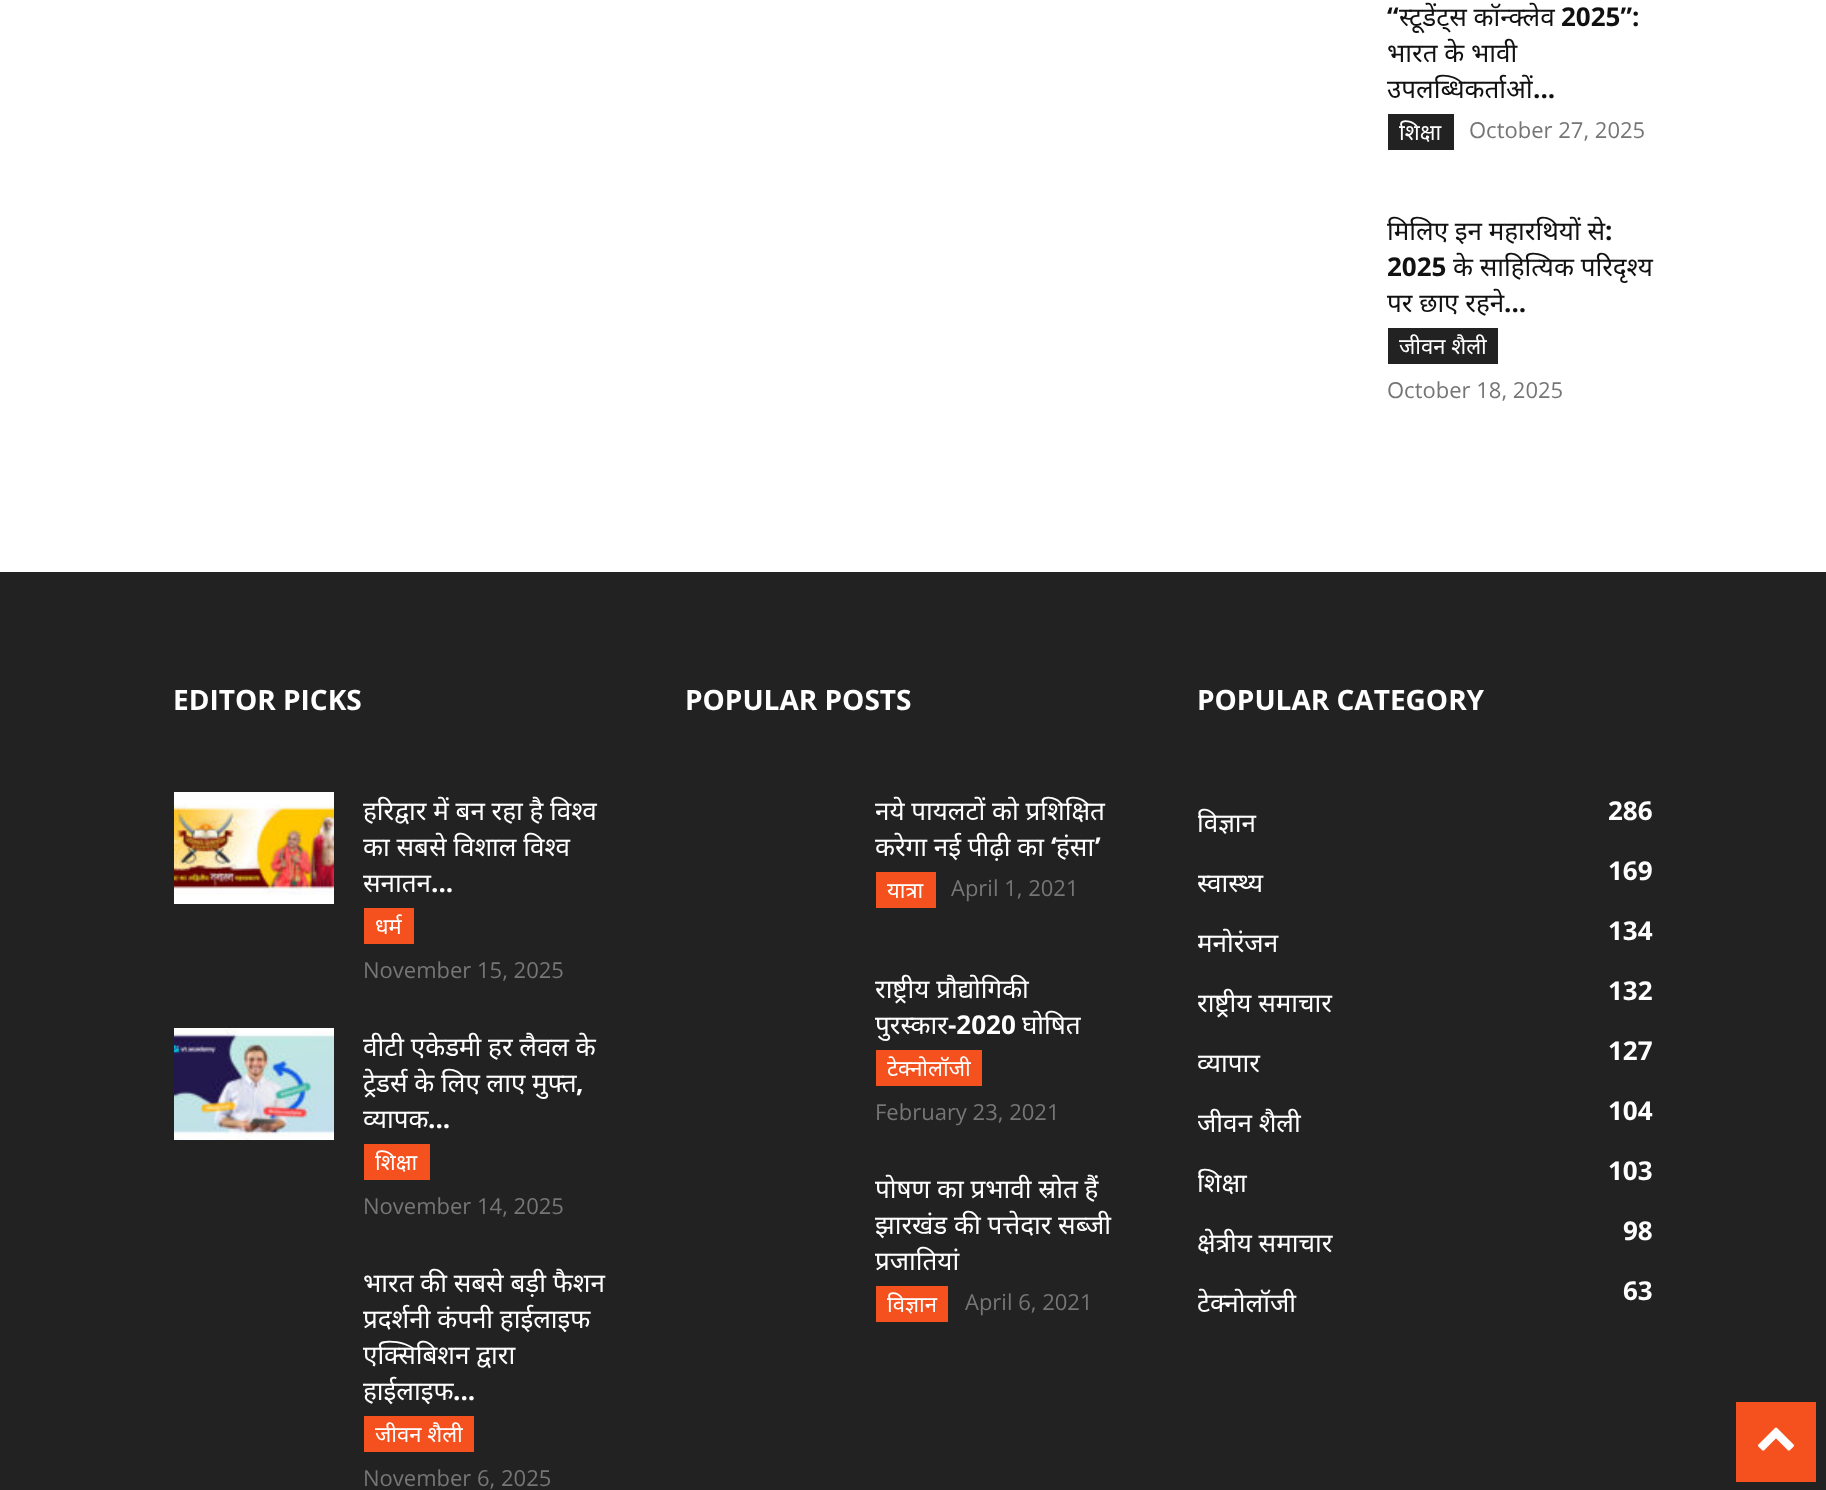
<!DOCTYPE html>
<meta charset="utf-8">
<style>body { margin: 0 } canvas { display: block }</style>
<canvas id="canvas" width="1826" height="1490"></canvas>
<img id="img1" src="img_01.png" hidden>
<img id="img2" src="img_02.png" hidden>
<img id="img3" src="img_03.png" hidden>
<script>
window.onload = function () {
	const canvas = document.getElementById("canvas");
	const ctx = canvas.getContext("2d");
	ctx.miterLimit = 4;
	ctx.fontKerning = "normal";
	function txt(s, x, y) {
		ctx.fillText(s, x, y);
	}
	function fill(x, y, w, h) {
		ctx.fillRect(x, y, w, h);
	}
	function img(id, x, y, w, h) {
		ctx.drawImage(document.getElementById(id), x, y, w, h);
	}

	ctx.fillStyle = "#FFFFFF";
	fill(0, 0, 1826, 1490);
	ctx.fillStyle = "#222222";
	fill(1388, 114, 66, 36);
	fill(1388, 328, 110, 36);
	fill(0, 572, 1826, 918);
	img("img1", 174, 792, 160, 112);
	ctx.fillStyle = "#F4511E";
	fill(364, 908, 50, 36);
	img("img2", 174, 1028, 160, 112);
	fill(364, 1144, 66, 36);
	fill(364, 1416, 110, 36);
	fill(876, 872, 60, 36);
	fill(876, 1050, 106, 36);
	fill(876, 1286, 72, 36);
	fill(1736, 1402, 80, 80);
	img("img3", 1758, 1427, 36, 24);
	ctx.font = "bold 26px Open Sans";
	ctx.fillStyle = "#111111";
	txt("“", 1387, 26);
	ctx.font = "26px Noto Sans";
	txt("स्टूडेंट्स कॉन्क्लेव", 1399, 26);
	ctx.font = "bold 26px Open Sans";
	txt("2025”:", 1561, 26);
	ctx.font = "26px Noto Sans";
	txt("भारत के भावी", 1387, 62);
	txt("उपलब्धिकर्ताओं", 1387, 98);
	ctx.font = "bold 26px Open Sans";
	txt("...", 1533, 98);
	ctx.font = "22px Noto Sans";
	ctx.fillStyle = "#FFFFFF";
	txt("शिक्षा", 1399, 140);
	ctx.font = "22px Open Sans";
	ctx.fillStyle = "#767676";
	txt("October 27, 2025", 1469, 138);
	ctx.font = "26px Noto Sans";
	ctx.fillStyle = "#111111";
	txt("मिलिए इन महारथियों से", 1387, 240);
	ctx.font = "bold 26px Open Sans";
	txt(":", 1605, 240);
	txt("2025", 1387, 276);
	ctx.font = "26px Noto Sans";
	txt("के साहित्यिक परिदृश्य", 1453, 276);
	txt("पर छाए रहने", 1387, 312);
	ctx.font = "bold 26px Open Sans";
	txt("...", 1504, 312);
	ctx.font = "22px Noto Sans";
	ctx.fillStyle = "#FFFFFF";
	txt("जीवन शैली", 1399, 354);
	ctx.font = "22px Open Sans";
	ctx.fillStyle = "#767676";
	txt("October 18, 2025", 1387, 398);
	ctx.font = "bold 28px Open Sans";
	ctx.fillStyle = "#FFFFFF";
	txt("EDITOR PICKS", 173, 710);
	ctx.font = "26px Noto Sans";
	txt("हरिद्वार में बन रहा है विश्व", 363, 820);
	txt("का सबसे विशाल विश्व", 363, 856);
	txt("सनातन", 363, 892);
	ctx.font = "bold 26px Open Sans";
	txt("...", 431, 892);
	ctx.font = "22px Noto Sans";
	txt("धर्म", 375, 934);
	ctx.font = "22px Open Sans";
	ctx.fillStyle = "#767676";
	txt("November 15, 2025", 363, 978);
	ctx.font = "26px Noto Sans";
	ctx.fillStyle = "#FFFFFF";
	txt("वीटी एकेडमी हर लैवल के", 363, 1056);
	txt("ट्रेडर्स के लिए लाए मुफ्त", 363, 1092);
	ctx.font = "bold 26px Open Sans";
	txt(",", 576, 1092);
	ctx.font = "26px Noto Sans";
	txt("व्यापक", 363, 1128);
	ctx.font = "bold 26px Open Sans";
	txt("...", 428, 1128);
	ctx.font = "22px Noto Sans";
	txt("शिक्षा", 375, 1170);
	ctx.font = "22px Open Sans";
	ctx.fillStyle = "#767676";
	txt("November 14, 2025", 363, 1214);
	ctx.font = "26px Noto Sans";
	ctx.fillStyle = "#FFFFFF";
	txt("भारत की सबसे बड़ी फैशन", 363, 1292);
	txt("प्रदर्शनी कंपनी हाईलाइफ", 363, 1328);
	txt("एक्सिबिशन द्वारा", 363, 1364);
	txt("हाईलाइफ", 363, 1400);
	ctx.font = "bold 26px Open Sans";
	txt("...", 453, 1400);
	ctx.font = "22px Noto Sans";
	txt("जीवन शैली", 375, 1442);
	ctx.font = "22px Open Sans";
	ctx.fillStyle = "#767676";
	txt("November 6, 2025", 363, 1486);
	ctx.font = "bold 28px Open Sans";
	ctx.fillStyle = "#FFFFFF";
	txt("POPULAR POSTS", 685, 710);
	ctx.font = "26px Noto Sans";
	txt("नये पायलटों को प्रशिक्षित", 875, 820);
	txt("करेगा नई पीढ़ी का", 875, 856);
	ctx.font = "bold 26px Open Sans";
	txt("‘", 1051, 856);
	ctx.font = "26px Noto Sans";
	txt("हंसा", 1056, 856);
	ctx.font = "bold 26px Open Sans";
	txt("’", 1095, 856);
	ctx.font = "22px Noto Sans";
	txt("यात्रा", 887, 898);
	ctx.font = "22px Open Sans";
	ctx.fillStyle = "#767676";
	txt("April 1, 2021", 951, 896);
	ctx.font = "26px Noto Sans";
	ctx.fillStyle = "#FFFFFF";
	txt("राष्ट्रीय प्रौद्योगिकी", 875, 998);
	txt("पुरस्कार", 875, 1034);
	ctx.font = "bold 26px Open Sans";
	txt("-2020", 948, 1034);
	ctx.font = "26px Noto Sans";
	txt("घोषित", 1022, 1034);
	ctx.font = "22px Noto Sans";
	txt("टेक्नोलॉजी", 887, 1076);
	ctx.font = "22px Open Sans";
	ctx.fillStyle = "#767676";
	txt("February 23, 2021", 875, 1120);
	ctx.font = "26px Noto Sans";
	ctx.fillStyle = "#FFFFFF";
	txt("पोषण का प्रभावी स्रोत हैं", 875, 1198);
	txt("झारखंड की पत्तेदार सब्जी", 875, 1234);
	txt("प्रजातियां", 875, 1270);
	ctx.font = "22px Noto Sans";
	txt("विज्ञान", 887, 1312);
	ctx.font = "22px Open Sans";
	ctx.fillStyle = "#767676";
	txt("April 6, 2021", 965, 1310);
	ctx.font = "bold 28px Open Sans";
	ctx.fillStyle = "#FFFFFF";
	txt("POPULAR CATEGORY", 1197, 710);
	ctx.save();
	ctx.beginPath();
	ctx.rect(1198, 662, 456, 670);
	ctx.clip();
	ctx.font = "26px Noto Sans";
	txt("विज्ञान", 1197, 832);
	ctx.restore();
	ctx.font = "bold 26px Open Sans";
	txt("286", 1608, 820);
	txt("169", 1608, 880);
	ctx.save();
	ctx.beginPath();
	ctx.rect(1198, 662, 456, 670);
	ctx.clip();
	ctx.font = "26px Noto Sans";
	txt("स्वास्थ्य", 1197, 892);
	txt("मनोरंजन", 1197, 952);
	ctx.restore();
	txt("134", 1608, 940);
	ctx.save();
	ctx.beginPath();
	ctx.rect(1198, 662, 456, 670);
	ctx.clip();
	ctx.font = "26px Noto Sans";
	txt("राष्ट्रीय समाचार", 1197, 1012);
	ctx.restore();
	txt("132", 1608, 1000);
	txt("127", 1608, 1060);
	ctx.save();
	ctx.beginPath();
	ctx.rect(1198, 662, 456, 670);
	ctx.clip();
	ctx.font = "26px Noto Sans";
	txt("व्यापार", 1197, 1072);
	txt("जीवन शैली", 1197, 1132);
	ctx.restore();
	txt("104", 1608, 1120);
	ctx.save();
	ctx.beginPath();
	ctx.rect(1198, 662, 456, 670);
	ctx.clip();
	ctx.font = "26px Noto Sans";
	txt("शिक्षा", 1197, 1192);
	ctx.restore();
	txt("103", 1608, 1180);
	ctx.save();
	ctx.beginPath();
	ctx.rect(1198, 662, 456, 670);
	ctx.clip();
	ctx.font = "26px Noto Sans";
	txt("क्षेत्रीय समाचार", 1197, 1252);
	ctx.restore();
	txt("98", 1623, 1240);
	ctx.save();
	ctx.beginPath();
	ctx.rect(1198, 662, 456, 670);
	ctx.clip();
	ctx.font = "26px Noto Sans";
	txt("टेक्नोलॉजी", 1197, 1312);
	ctx.restore();
	txt("63", 1623, 1300);
};
</script>
